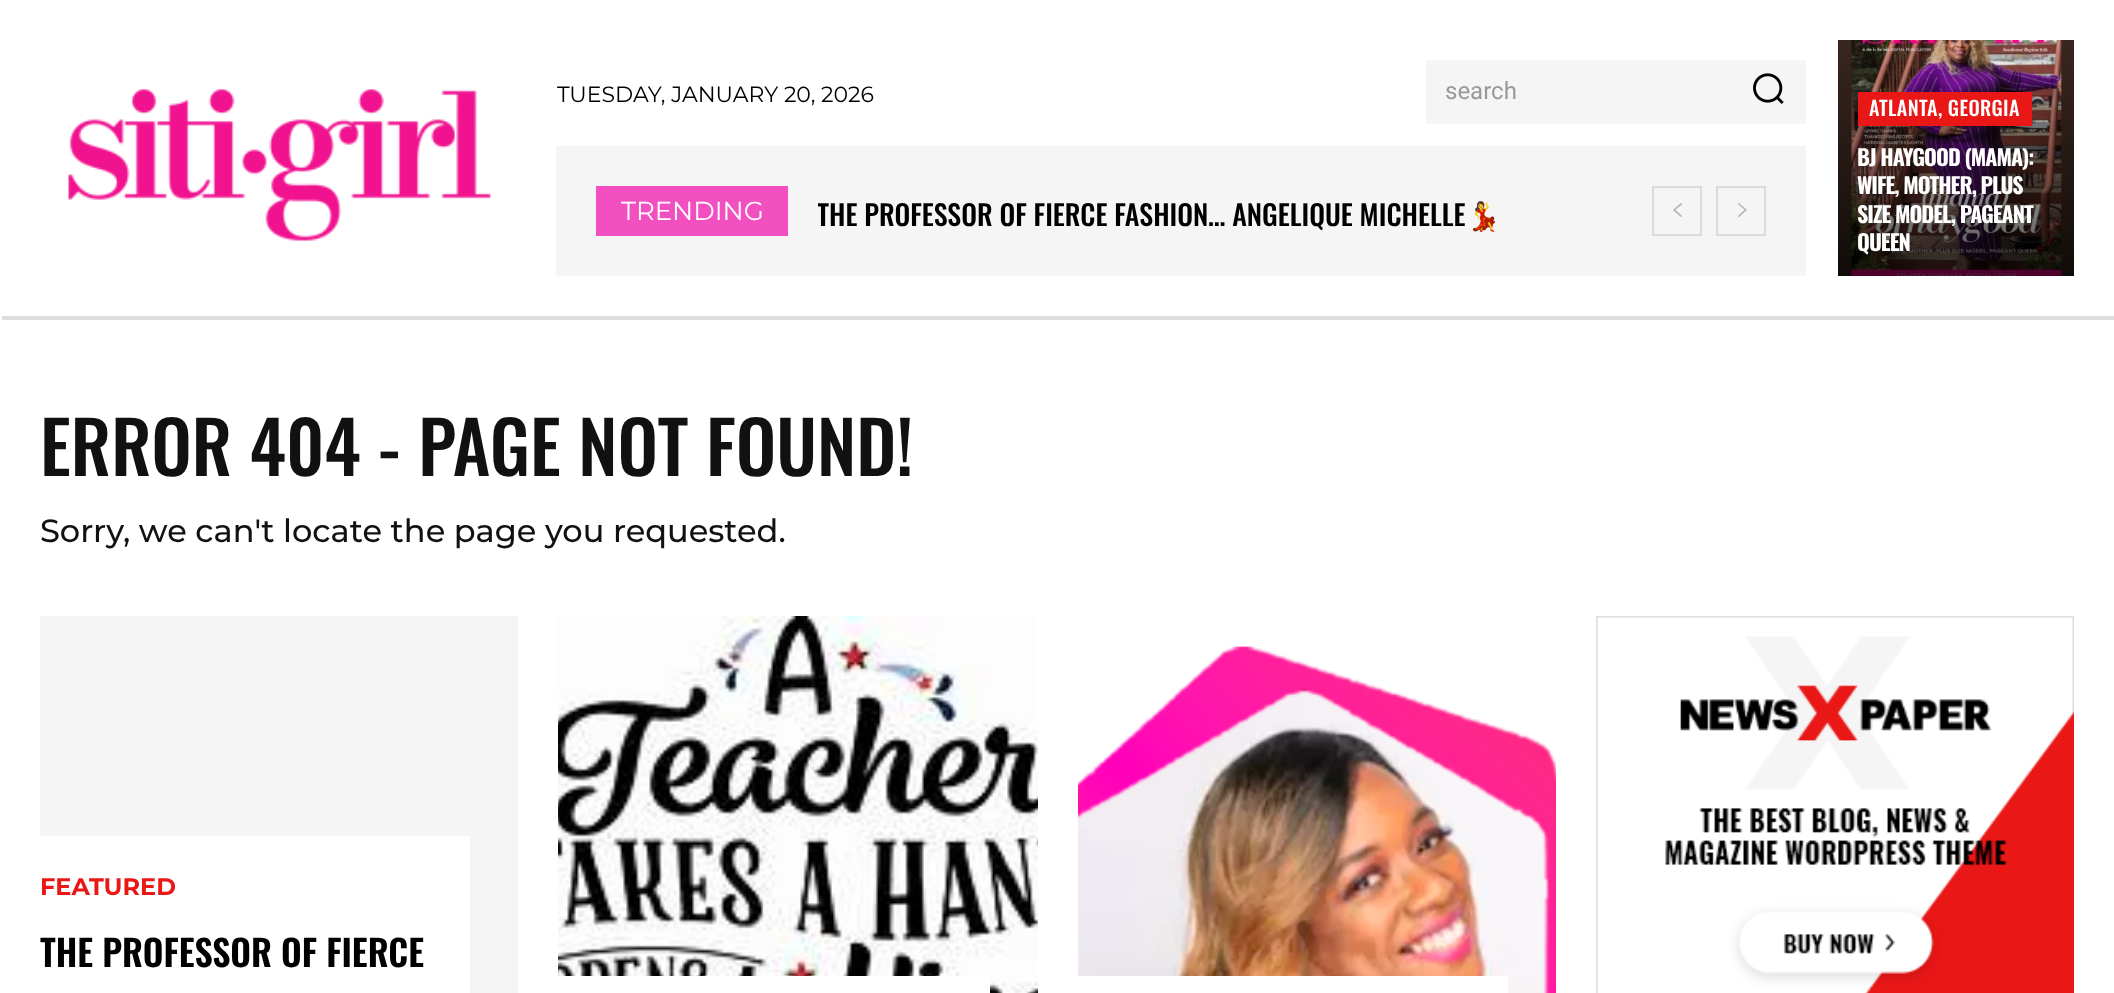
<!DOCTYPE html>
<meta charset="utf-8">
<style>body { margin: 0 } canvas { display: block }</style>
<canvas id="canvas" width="2114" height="993"></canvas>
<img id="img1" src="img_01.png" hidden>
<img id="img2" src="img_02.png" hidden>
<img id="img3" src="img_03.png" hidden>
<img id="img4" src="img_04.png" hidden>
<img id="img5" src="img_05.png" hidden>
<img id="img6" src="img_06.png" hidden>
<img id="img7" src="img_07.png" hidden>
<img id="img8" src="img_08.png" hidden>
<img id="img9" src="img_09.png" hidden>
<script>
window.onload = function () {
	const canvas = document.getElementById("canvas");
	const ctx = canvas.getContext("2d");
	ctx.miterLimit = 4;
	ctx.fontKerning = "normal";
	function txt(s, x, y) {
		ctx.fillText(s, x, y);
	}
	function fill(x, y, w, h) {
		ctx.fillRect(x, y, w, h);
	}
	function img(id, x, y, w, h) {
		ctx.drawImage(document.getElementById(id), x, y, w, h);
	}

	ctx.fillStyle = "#FFFFFF";
	fill(0, 0, 2114, 993);
	img("img1", 68, 89, 423, 152);
	ctx.fillStyle = "#F5F5F5";
	fill(1426, 60, 380, 64);
	img("img2", 1753, 73, 31, 31);
	fill(556, 146, 1250, 130);
	ctx.fillStyle = "#F24FC1";
	fill(596, 186, 192, 50);
	ctx.strokeStyle = "#DCDCDC";
	ctx.lineWidth = 2;
	ctx.strokeRect(1653, 187, 48, 48);
	img("img3", 1673, 203, 9, 14);
	ctx.strokeRect(1717, 187, 48, 48);
	img("img4", 1738, 203, 9, 14);
	img("img5", 1838, 40, 236, 236);
	ctx.fillStyle = "#EA1717";
	fill(1858, 92, 174, 34);
	ctx.fillStyle = "#DDDDDD";
	fill(2, 316, 2112, 4);
	img("img6", 40, 616, 478, 377);
	ctx.fillStyle = "#FFFFFF";
	fill(40, 836, 430, 157);
	img("img7", 558, 616, 480, 377);
	fill(558, 976, 432, 17);
	img("img8", 1078, 646, 478, 347);
	fill(1078, 976, 430, 17);
	img("img9", 1596, 616, 478, 377);
	ctx.font = "22px Montserrat";
	ctx.fillStyle = "#000000";
	txt("TUESDAY, JANUARY 20, 2026", 557, 102);
	ctx.font = "24px Roboto";
	ctx.fillStyle = "#999999";
	txt("search", 1445, 99);
	ctx.font = "26px Montserrat";
	ctx.fillStyle = "#FFFFFF";
	txt("TRENDING", 621, 220);
	ctx.save();
	ctx.beginPath();
	ctx.rect(818, 186, 948, 50);
	ctx.clip();
	ctx.font = "500 28px Oswald";
	ctx.fillStyle = "#000000";
	txt("THE PROFESSOR OF FIERCE FASHION… ANGELIQUE MICHELLE", 817, 226);
	ctx.restore();
	ctx.font = "28px Noto Color Emoji";
	ctx.fillStyle = "#000000";
	txt("💃", 1466, 226);
	ctx.letterSpacing = "0.4px";
	ctx.font = "500 20px Oswald";
	ctx.fillStyle = "#FFFFFF";
	txt("ATLANTA, GEORGIA", 1869, 116);
	ctx.letterSpacing = "-1px";
	ctx.font = "bold 22px Oswald";
	txt("BJ HAYGOOD (MAMA):", 1857, 166);
	txt("WIFE, MOTHER, PLUS", 1857, 194);
	txt("SIZE MODEL, PAGEANT", 1857, 223);
	txt("QUEEN", 1857, 251);
	ctx.letterSpacing = "0px";
	ctx.font = "500 72px Oswald";
	ctx.fillStyle = "#111111";
	txt("ERROR 404 - PAGE NOT FOUND!", 40, 476);
	ctx.font = "500 32px Montserrat";
	txt("Sorry, we can't locate the page you requested.", 40, 542);
	ctx.font = "bold 24px Montserrat";
	ctx.fillStyle = "#EA1717";
	txt("FEATURED", 40, 895);
	ctx.font = "600 36px Oswald";
	ctx.fillStyle = "#000000";
	txt("THE PROFESSOR OF FIERCE", 40, 967);
};
</script>
